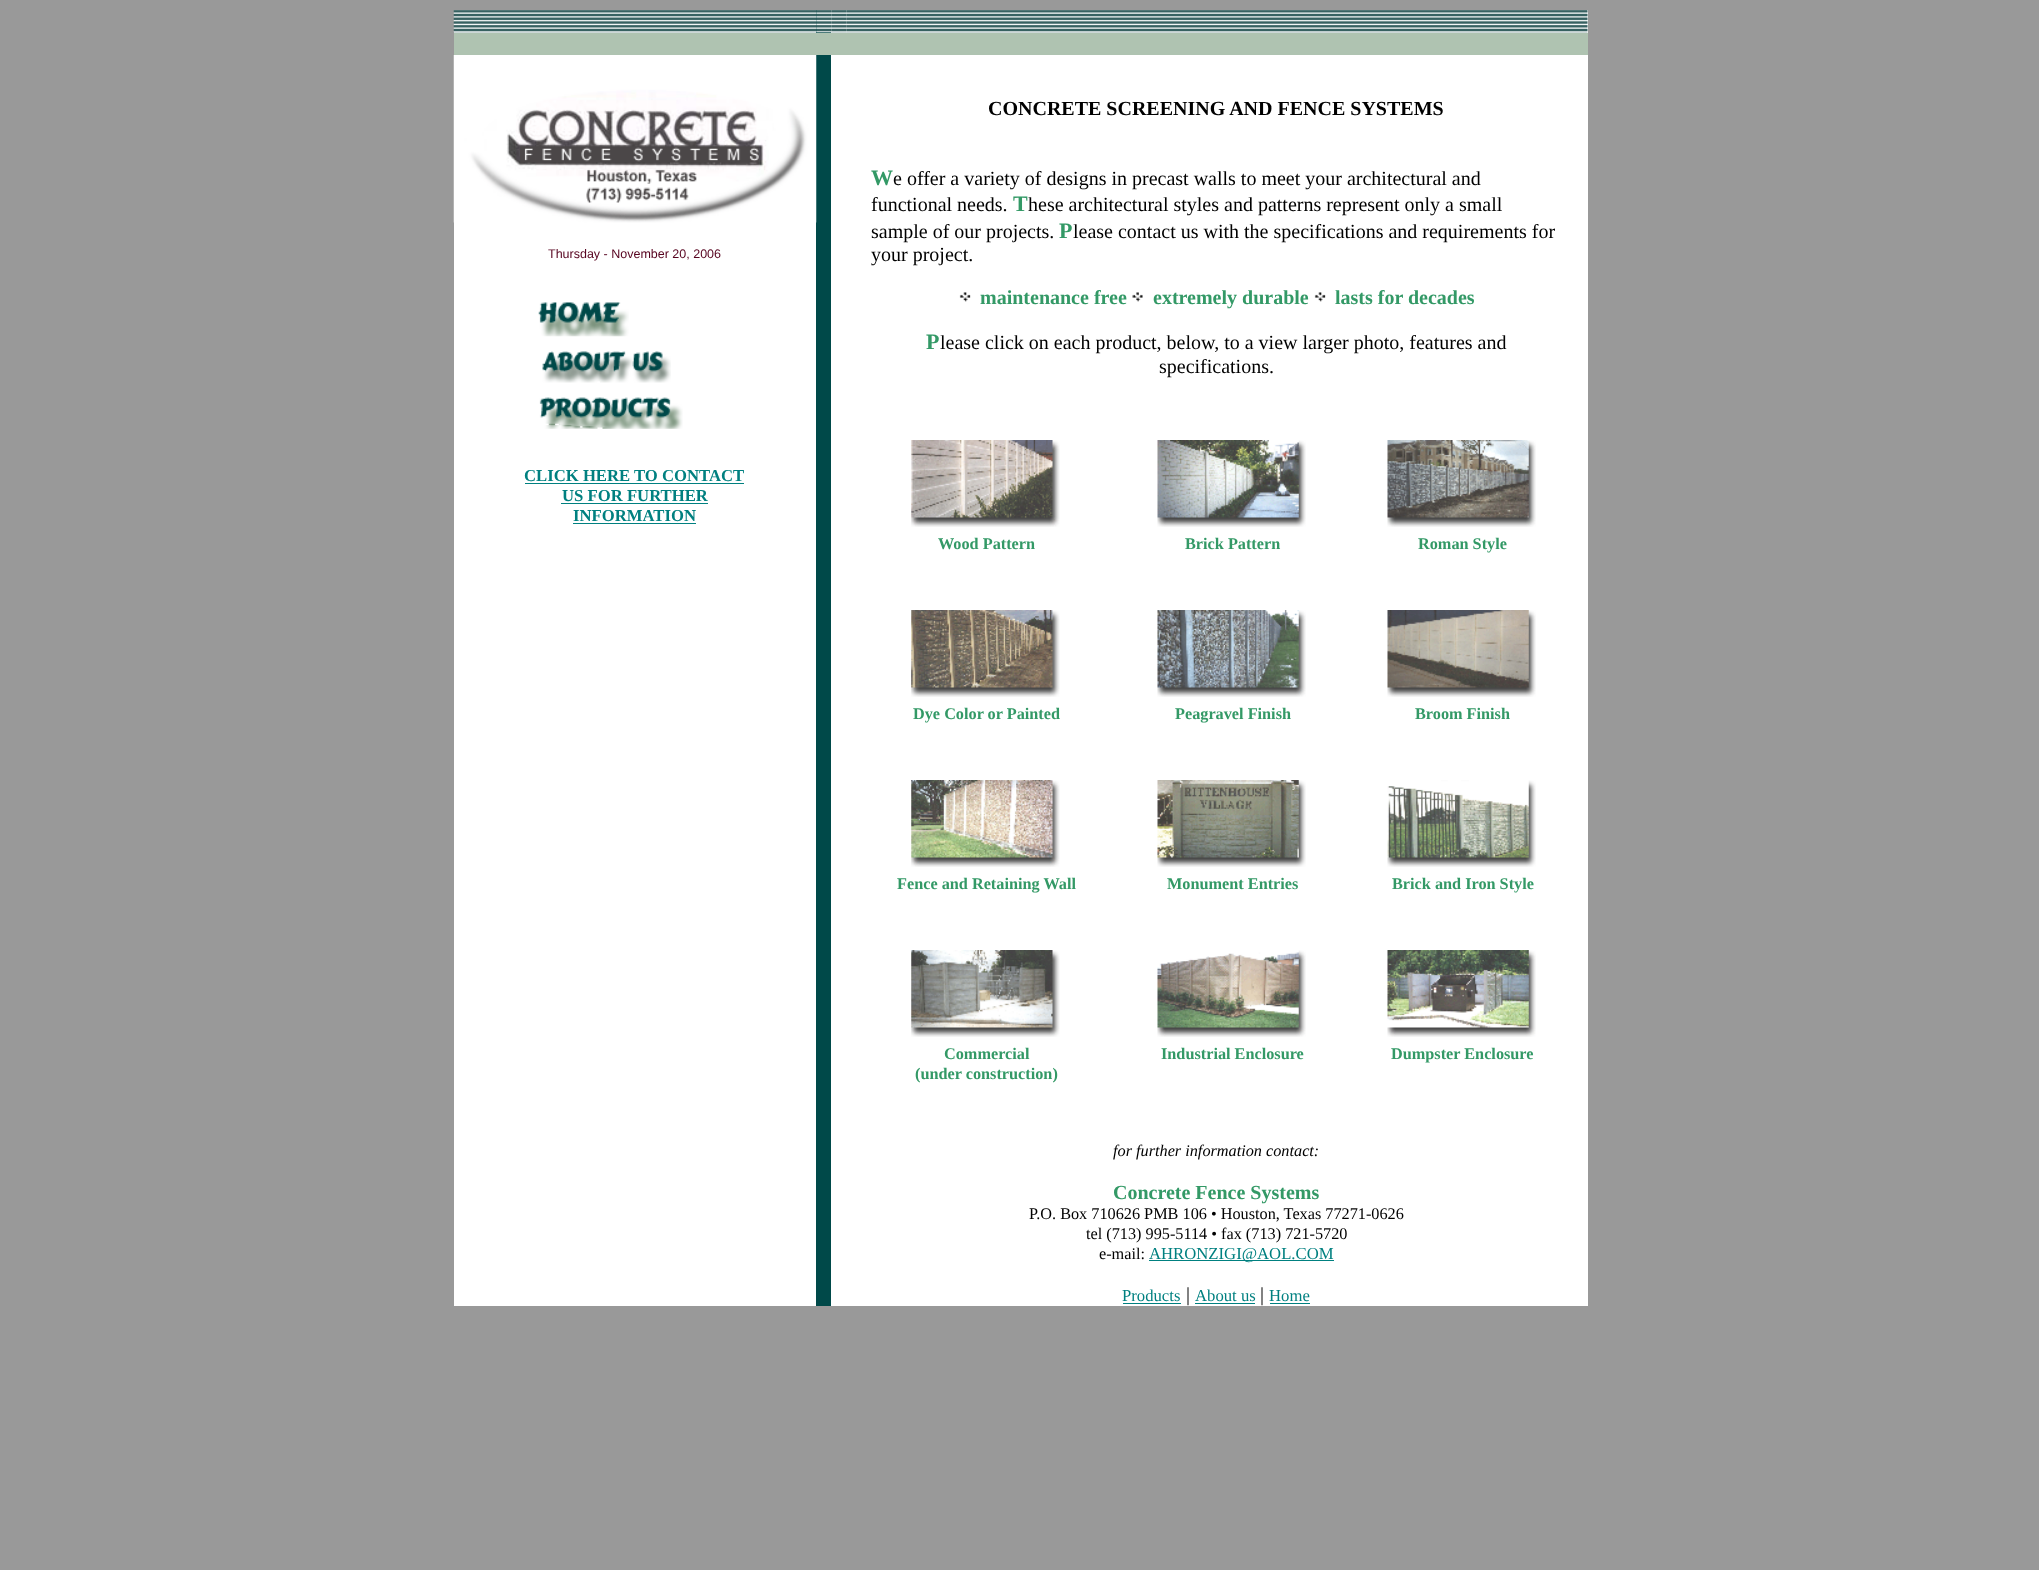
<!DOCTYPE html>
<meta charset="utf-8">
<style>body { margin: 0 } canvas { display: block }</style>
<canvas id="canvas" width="2039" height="1570"></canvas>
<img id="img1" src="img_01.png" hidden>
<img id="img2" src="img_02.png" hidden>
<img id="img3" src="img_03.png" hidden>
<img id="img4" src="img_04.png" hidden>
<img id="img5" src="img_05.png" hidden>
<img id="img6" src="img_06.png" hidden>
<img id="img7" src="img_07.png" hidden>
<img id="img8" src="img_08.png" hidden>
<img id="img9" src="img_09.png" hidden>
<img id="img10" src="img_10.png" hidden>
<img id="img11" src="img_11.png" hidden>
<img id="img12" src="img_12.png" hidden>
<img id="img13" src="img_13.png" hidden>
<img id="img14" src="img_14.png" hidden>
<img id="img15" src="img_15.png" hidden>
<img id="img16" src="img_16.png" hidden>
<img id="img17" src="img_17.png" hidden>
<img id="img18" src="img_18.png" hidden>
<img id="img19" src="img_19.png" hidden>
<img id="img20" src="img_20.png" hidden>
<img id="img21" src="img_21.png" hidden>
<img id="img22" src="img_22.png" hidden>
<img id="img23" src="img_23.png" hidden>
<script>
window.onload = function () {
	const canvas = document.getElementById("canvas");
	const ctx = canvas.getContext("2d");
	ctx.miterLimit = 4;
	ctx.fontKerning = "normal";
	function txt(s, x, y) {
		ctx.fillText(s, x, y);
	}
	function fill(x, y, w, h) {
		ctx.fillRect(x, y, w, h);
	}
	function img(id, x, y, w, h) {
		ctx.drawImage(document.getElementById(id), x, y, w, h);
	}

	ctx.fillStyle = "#999999";
	fill(0, 0, 2039, 1570);
	ctx.fillStyle = "#FFFFFF";
	fill(454, 10, 1134, 1296);
	img("img1", 453, 10, 363, 23);
	ctx.fillStyle = "#004949";
	fill(816, 10, 15, 23);
	img("img2", 816, 10, 16, 23);
	img("img3", 831, 10, 16, 23);
	img("img4", 846, 10, 742, 23);
	ctx.fillStyle = "#AFC3B1";
	fill(454, 33, 1134, 22);
	ctx.fillStyle = "#004949";
	fill(816, 55, 15, 1251);
	img("img5", 453, 55, 364, 168);
	img("img6", 538, 302, 91, 35);
	img("img7", 542, 351, 129, 32);
	img("img8", 539, 397, 144, 32);
	ctx.fillStyle = "#008080";
	fill(525, 483, 219, 1);
	fill(561, 503, 147, 1);
	fill(573, 523, 123, 1);
	img("img9", 959, 292, 12, 10);
	img("img10", 1132, 292, 11, 10);
	img("img11", 1314, 292, 12, 10);
	img("img12", 911, 440, 149, 87);
	img("img13", 1157, 440, 149, 87);
	img("img14", 1387, 440, 149, 87);
	img("img15", 911, 610, 149, 87);
	img("img16", 1157, 610, 149, 87);
	img("img17", 1387, 610, 149, 87);
	img("img18", 911, 780, 149, 87);
	img("img19", 1157, 780, 149, 87);
	img("img20", 1387, 780, 149, 87);
	img("img21", 911, 950, 149, 87);
	img("img22", 1157, 950, 149, 87);
	img("img23", 1387, 950, 149, 87);
	fill(1149, 1260, 185, 1);
	fill(1123, 1303, 58, 1);
	fill(1195, 1303, 60, 1);
	fill(1270, 1303, 40, 1);
	ctx.font = "12.5px Liberation Sans";
	ctx.fillStyle = "#57031F";
	txt("Thursday - November 20, 2006", 548, 258);
	ctx.font = "bold 16.7px Liberation Serif";
	ctx.fillStyle = "#008080";
	txt("CLICK HERE TO CONTACT", 524, 481);
	txt("US FOR FURTHER", 562, 501);
	txt("INFORMATION", 573, 521);
	ctx.font = "bold 20px Liberation Serif";
	ctx.fillStyle = "#000000";
	txt("CONCRETE SCREENING AND FENCE SYSTEMS", 988, 115);
	ctx.font = "bold 22px Liberation Serif";
	ctx.fillStyle = "#339966";
	txt("W", 871, 185);
	ctx.font = "20px Liberation Serif";
	ctx.fillStyle = "#000000";
	txt("e offer a variety of designs in precast walls to meet your architectural and", 893, 185);
	txt("functional needs.", 871, 211);
	ctx.font = "bold 22px Liberation Serif";
	ctx.fillStyle = "#339966";
	txt("T", 1013, 211);
	ctx.font = "20px Liberation Serif";
	ctx.fillStyle = "#000000";
	txt("hese architectural styles and patterns represent only a small", 1028, 211);
	txt("sample of our projects.", 871, 238);
	ctx.font = "bold 22px Liberation Serif";
	ctx.fillStyle = "#339966";
	txt("P", 1059, 238);
	ctx.font = "20px Liberation Serif";
	ctx.fillStyle = "#000000";
	txt("lease contact us with the specifications and requirements for", 1073, 238);
	txt("your project.", 871, 261);
	ctx.font = "bold 20px Liberation Serif";
	ctx.fillStyle = "#339966";
	txt("maintenance free", 980, 304);
	txt("extremely durable", 1153, 304);
	txt("lasts for decades", 1335, 304);
	ctx.font = "bold 22px Liberation Serif";
	txt("P", 926, 349);
	ctx.font = "20px Liberation Serif";
	ctx.fillStyle = "#000000";
	txt("lease click on each product, below, to a view larger photo, features and", 940, 349);
	txt("specifications.", 1159, 373);
	ctx.font = "bold 16.25px Liberation Serif";
	ctx.fillStyle = "#339966";
	txt("Wood Pattern", 938, 549);
	txt("Brick Pattern", 1185, 549);
	txt("Roman Style", 1418, 549);
	txt("Dye Color or Painted", 913, 719);
	txt("Peagravel Finish", 1175, 719);
	txt("Broom Finish", 1415, 719);
	txt("Fence and Retaining Wall", 897, 889);
	txt("Monument Entries", 1167, 889);
	txt("Brick and Iron Style", 1392, 889);
	txt("Commercial", 944, 1059);
	txt("(under construction)", 915, 1079);
	txt("Industrial Enclosure", 1161, 1059);
	txt("Dumpster Enclosure", 1391, 1059);
	ctx.font = "italic 16.25px Liberation Serif";
	ctx.fillStyle = "#000000";
	txt("for further information contact:", 1113, 1156);
	ctx.font = "bold 20px Liberation Serif";
	ctx.fillStyle = "#339966";
	txt("Concrete Fence Systems", 1113, 1199);
	ctx.font = "16.25px Liberation Serif";
	ctx.fillStyle = "#000000";
	txt("P.O. Box 710626 PMB 106 • Houston, Texas 77271-0626", 1029, 1219);
	txt("tel (713) 995-5114 • fax (713) 721-5720", 1086, 1239);
	txt("e-mail:", 1099, 1259);
	ctx.font = "16.7px Liberation Serif";
	ctx.fillStyle = "#008080";
	txt("AHRONZIGI@AOL.COM", 1149, 1259);
	txt("Products", 1122, 1301);
	ctx.font = "20px Liberation Serif";
	ctx.fillStyle = "#000000";
	txt("|", 1186, 1301);
	ctx.font = "16.7px Liberation Serif";
	ctx.fillStyle = "#008080";
	txt("About us", 1195, 1301);
	ctx.font = "20px Liberation Serif";
	ctx.fillStyle = "#000000";
	txt("|", 1260, 1301);
	ctx.font = "16.7px Liberation Serif";
	ctx.fillStyle = "#008080";
	txt("Home", 1269, 1301);
};
</script>
